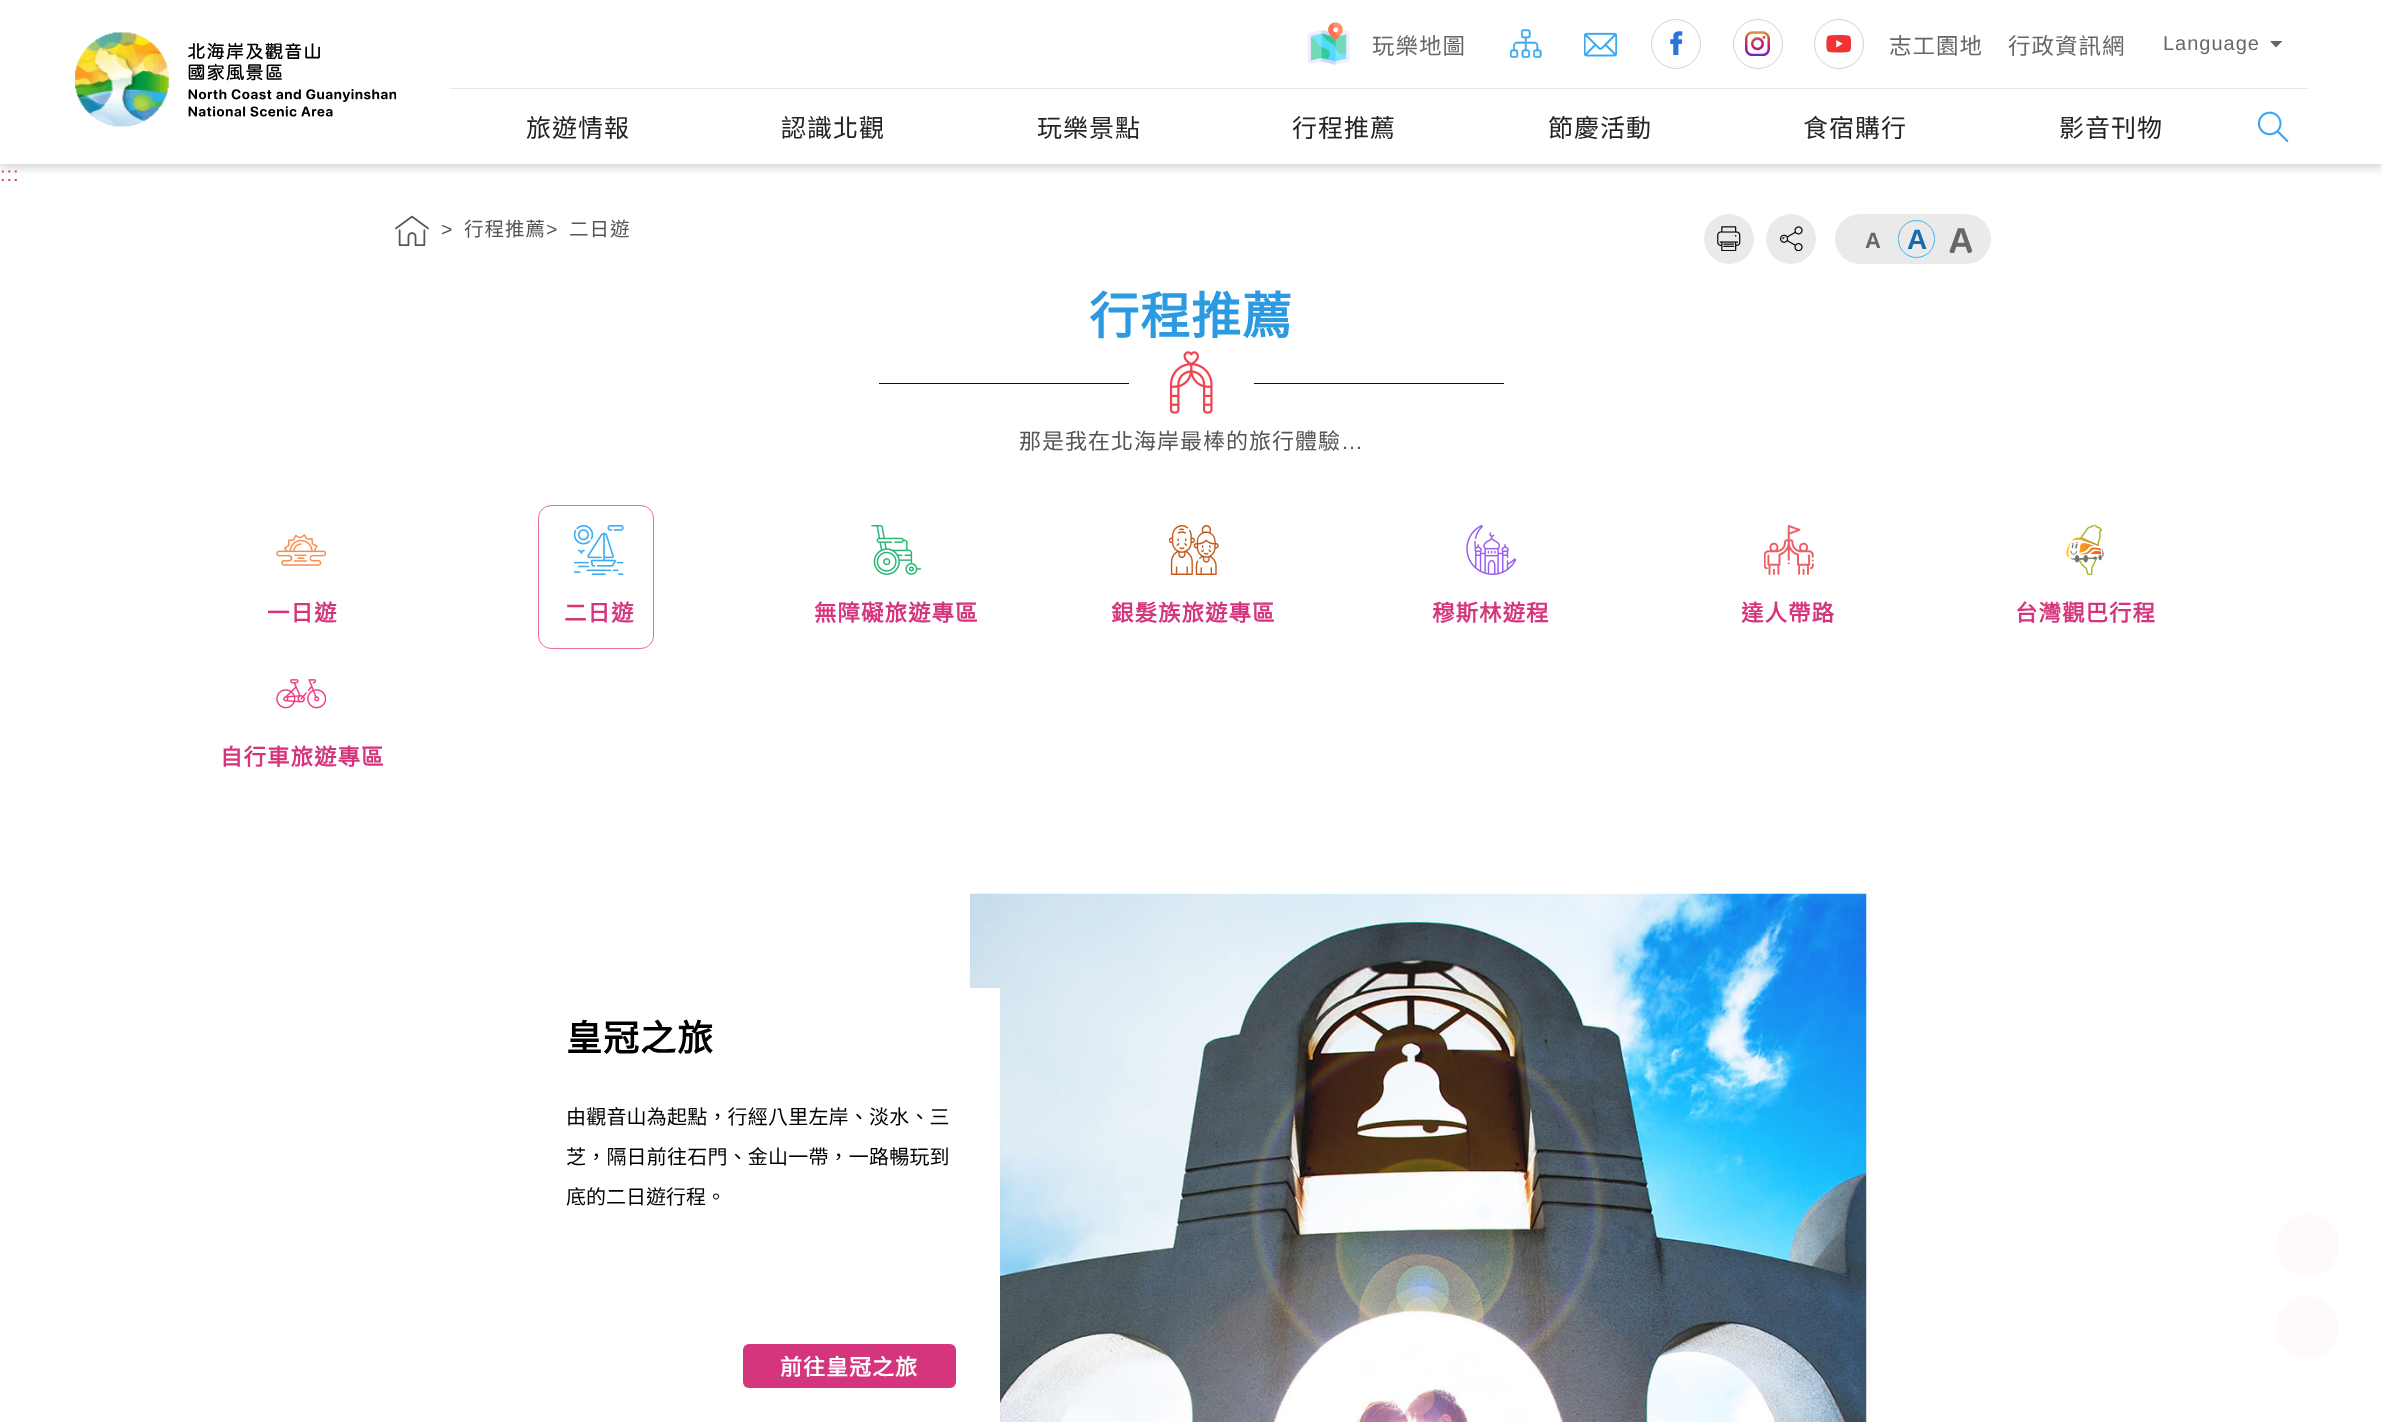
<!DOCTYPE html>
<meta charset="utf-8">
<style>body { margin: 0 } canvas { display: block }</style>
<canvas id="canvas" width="2382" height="1422"></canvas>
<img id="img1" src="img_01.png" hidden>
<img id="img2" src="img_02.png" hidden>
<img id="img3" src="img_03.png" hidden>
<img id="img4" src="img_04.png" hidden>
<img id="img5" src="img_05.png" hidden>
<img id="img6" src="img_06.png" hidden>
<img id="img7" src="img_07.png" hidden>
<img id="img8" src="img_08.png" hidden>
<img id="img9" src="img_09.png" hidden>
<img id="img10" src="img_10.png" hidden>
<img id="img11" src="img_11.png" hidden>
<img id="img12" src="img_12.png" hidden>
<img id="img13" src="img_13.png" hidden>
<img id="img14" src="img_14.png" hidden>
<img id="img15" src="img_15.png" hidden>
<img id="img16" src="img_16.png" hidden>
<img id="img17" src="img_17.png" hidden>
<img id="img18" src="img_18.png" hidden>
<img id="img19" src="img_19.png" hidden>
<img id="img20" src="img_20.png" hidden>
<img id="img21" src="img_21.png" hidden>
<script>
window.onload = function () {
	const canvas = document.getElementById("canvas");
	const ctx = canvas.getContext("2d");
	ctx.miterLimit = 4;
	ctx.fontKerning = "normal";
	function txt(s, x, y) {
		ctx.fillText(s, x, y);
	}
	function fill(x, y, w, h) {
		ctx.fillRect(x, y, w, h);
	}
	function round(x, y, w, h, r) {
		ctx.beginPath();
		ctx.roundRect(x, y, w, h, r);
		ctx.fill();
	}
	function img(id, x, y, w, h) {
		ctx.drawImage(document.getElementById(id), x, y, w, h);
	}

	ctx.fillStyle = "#FFFFFF";
	fill(0, 0, 2382, 1422);
	ctx.fillStyle = "rgba(0, 0, 0, 0.16)";
	ctx.filter = "blur(4px)";
	ctx.beginPath();
	ctx.rect(0, 4, 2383, 164);
	ctx.fill();
	ctx.filter = "none";
	ctx.fillStyle = "#FFFFFF";
	fill(0, 0, 2382, 164);
	img("img1", 75, 32, 321, 95);
	ctx.fillStyle = "#E8E8E8";
	fill(450, 88, 1858, 1);
	img("img2", 1307, 22, 43, 43);
	img("img3", 1509, 29, 33, 29);
	img("img4", 1584, 32, 33, 25);
	img("img5", 1670, 31, 13, 25);
	ctx.beginPath();
	ctx.arc(1676, 44, 24.5, 0, Math.PI * 2);
	ctx.strokeStyle = "#D2D2D2";
	ctx.stroke();
	img("img6", 1745, 31, 25, 25);
	ctx.beginPath();
	ctx.arc(1758, 44, 24.5, 0, Math.PI * 2);
	ctx.stroke();
	img("img7", 1826, 35, 25, 18);
	ctx.beginPath();
	ctx.arc(1839, 44, 24.5, 0, Math.PI * 2);
	ctx.stroke();
	ctx.fillStyle = "#676767";
	ctx.beginPath();
	ctx.moveTo(2270, 41);
	ctx.lineTo(2282.5, 41);
	ctx.lineTo(2276, 47.5);
	ctx.closePath();
	ctx.fill();
	img("img8", 2258, 111, 31, 31);
	img("img9", 395, 215, 34, 31);
	ctx.fillStyle = "#EAEAEA";
	ctx.beginPath();
	ctx.arc(1729, 239, 25, 0, Math.PI * 2);
	ctx.fill();
	img("img10", 1717, 226, 24, 25);
	ctx.beginPath();
	ctx.arc(1791, 239, 25, 0, Math.PI * 2);
	ctx.fill();
	img("img11", 1780, 226, 23, 25);
	round(1835, 214, 156, 50, 25);
	ctx.beginPath();
	ctx.roundRect(1898.5, 220.5, 36, 37, 18);
	ctx.strokeStyle = "#41B5E6";
	ctx.stroke();
	ctx.fillStyle = "#111111";
	fill(879, 383, 250, 1);
	img("img12", 1169, 351, 44, 63);
	fill(1254, 383, 250, 1);
	img("img13", 276, 534, 50, 32);
	ctx.beginPath();
	ctx.roundRect(538.5, 505.5, 115, 143, 12.5);
	ctx.strokeStyle = "#EC6AA4";
	ctx.stroke();
	img("img14", 574, 525, 50, 50);
	img("img15", 871, 525, 50, 50);
	img("img16", 1169, 525, 50, 50);
	img("img17", 1466, 525, 50, 50);
	img("img18", 1764, 525, 50, 50);
	img("img19", 2066, 525, 38, 50);
	img("img20", 276, 679, 50, 30);
	img("img21", 970, 893, 897, 529);
	ctx.fillStyle = "#FFFFFF";
	fill(970, 988, 30, 434);
	ctx.fillStyle = "#D4357C";
	round(743, 1344, 213, 44, 6);
	ctx.fillStyle = "#FEFAFC";
	round(2276, 1214, 63, 62, 31);
	ctx.beginPath();
	ctx.arc(2307.5, 1327.5, 31.5, 0, Math.PI * 2);
	ctx.fill();
	ctx.letterSpacing = "1px";
	ctx.font = "22.5px Noto Sans CJK TC";
	ctx.fillStyle = "#676767";
	txt("玩樂地圖", 1372, 54);
	txt("志工園地", 1889, 54);
	txt("行政資訊網", 2008, 54);
	ctx.font = "20px Liberation Sans";
	txt("Language", 2163, 50);
	ctx.font = "25px Noto Sans CJK TC";
	ctx.fillStyle = "#242424";
	txt("旅遊情報", 526, 137);
	txt("認識北觀", 781, 137);
	txt("玩樂景點", 1037, 137);
	txt("行程推薦", 1292, 137);
	txt("節慶活動", 1548, 137);
	txt("食宿購行", 1803, 137);
	txt("影音刊物", 2059, 137);
	ctx.font = "20px Liberation Sans";
	ctx.fillStyle = "#D4357C";
	txt(":::", 0, 181);
	ctx.font = "19.5px Liberation Sans";
	ctx.fillStyle = "#555555";
	txt(">", 441, 236);
	ctx.font = "19.5px Noto Sans CJK TC";
	txt("行程推薦", 464, 236);
	ctx.font = "19.5px Liberation Sans";
	txt(">", 546, 236);
	ctx.font = "19.5px Noto Sans CJK TC";
	txt("二日遊", 569, 236);
	ctx.font = "bold 22px Liberation Sans";
	ctx.fillStyle = "#676767";
	txt("A", 1865, 248);
	ctx.font = "bold 28px Liberation Sans";
	ctx.fillStyle = "#186BAD";
	txt("A", 1907, 249);
	ctx.save();
	ctx.beginPath();
	ctx.roundRect(1943, 221, 35, 35, 17.5);
	ctx.clip();
	ctx.font = "bold 36px Liberation Sans";
	ctx.fillStyle = "#676767";
	txt("A", 1948, 253);
	ctx.restore();
	ctx.font = "bold 50px Noto Sans CJK TC";
	ctx.fillStyle = "#2B9AE1";
	txt("行程推薦", 1089, 334);
	ctx.font = "22px Noto Sans CJK TC";
	ctx.fillStyle = "#555555";
	txt("那是我在北海岸最棒的旅行體驗", 1019, 449);
	ctx.font = "22px Liberation Sans";
	txt("…", 1341, 449);
	ctx.font = "bold 22.5px Noto Sans CJK TC";
	ctx.fillStyle = "#D4357C";
	txt("一日遊", 267, 621);
	txt("二日遊", 564, 621);
	txt("無障礙旅遊專區", 814, 621);
	txt("銀髮族旅遊專區", 1111, 621);
	txt("穆斯林遊程", 1432, 621);
	txt("達人帶路", 1741, 621);
	txt("台灣觀巴行程", 2015, 621);
	txt("自行車旅遊專區", 220, 765);
	ctx.font = "bold 36px Noto Sans CJK TC";
	ctx.fillStyle = "#000000";
	txt("皇冠之旅", 566, 1051);
	ctx.letterSpacing = "0.2px";
	ctx.font = "20px Noto Sans CJK TC";
	txt("由觀音山為起點，行經八里左岸、淡水、三", 566, 1124);
	txt("芝，隔日前往石門、金山一帶，一路暢玩到", 566, 1164);
	ctx.letterSpacing = "0px";
	txt("底的二日遊行程。", 566, 1204);
	ctx.letterSpacing = "1px";
	ctx.font = "bold 22px Noto Sans CJK TC";
	ctx.fillStyle = "#FFFFFF";
	txt("前往皇冠之旅", 780, 1375);
};
</script>
